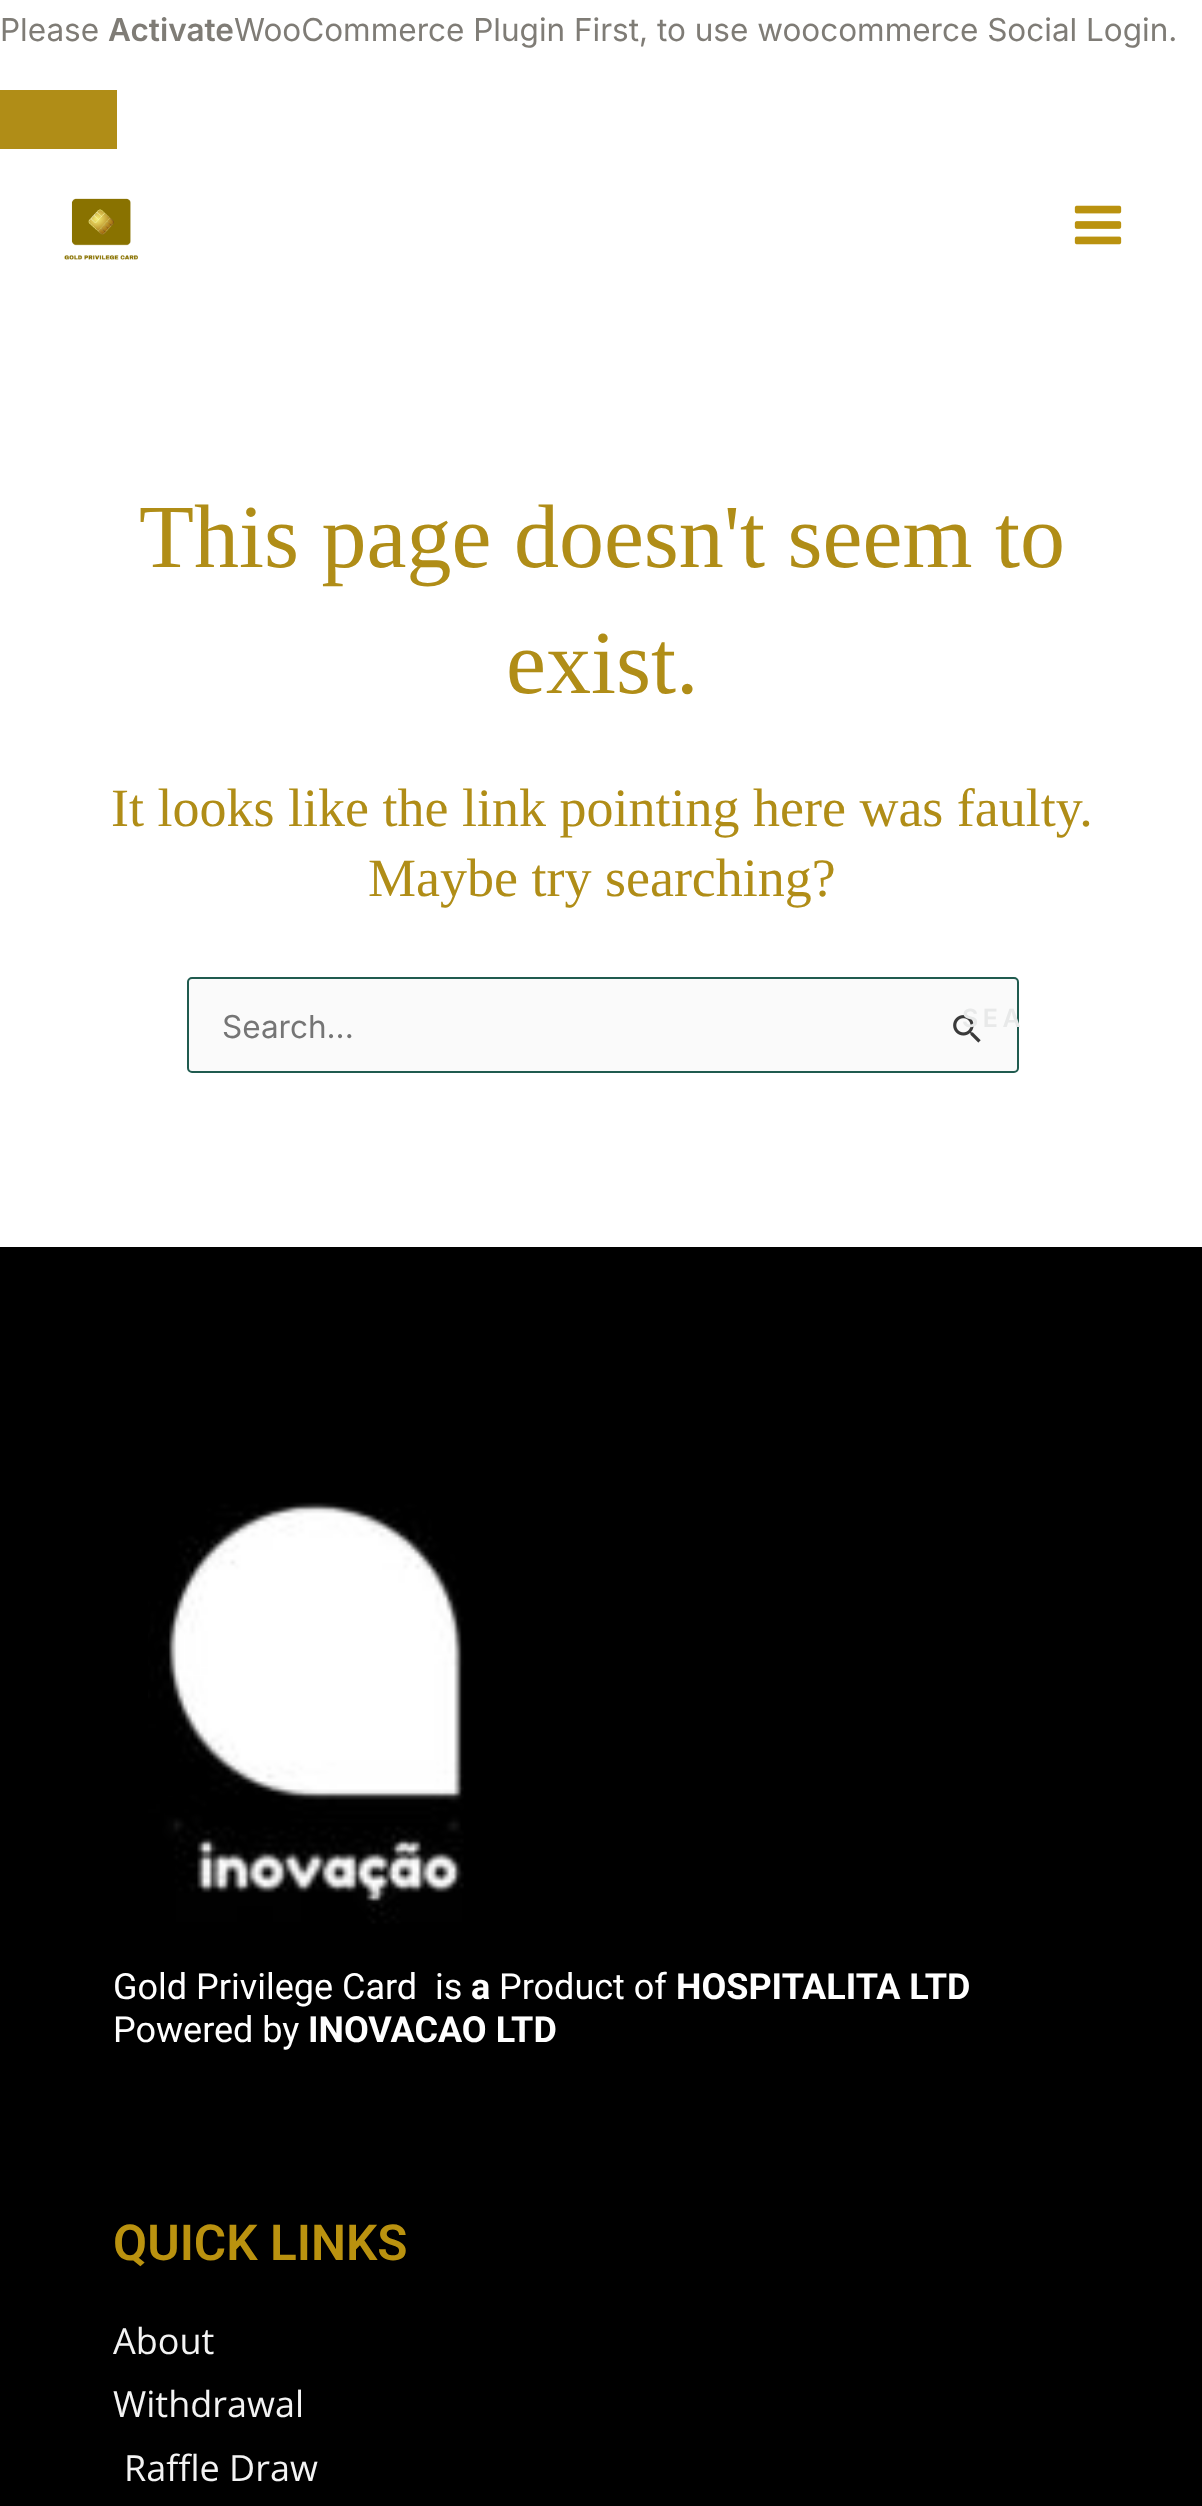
<!DOCTYPE html>
<meta charset="utf-8">
<style>body { margin: 0 } canvas { display: block }</style>
<canvas id="canvas" width="1202" height="2506"></canvas>
<img id="img1" src="img_01.png" hidden>
<img id="img2" src="img_02.png" hidden>
<img id="img3" src="img_03.png" hidden>
<img id="img4" src="img_04.png" hidden>
<script>
window.onload = function () {
	const canvas = document.getElementById("canvas");
	const ctx = canvas.getContext("2d");
	ctx.miterLimit = 4;
	ctx.fontKerning = "normal";
	function txt(s, x, y) {
		ctx.fillText(s, x, y);
	}
	function fill(x, y, w, h) {
		ctx.fillRect(x, y, w, h);
	}
	function img(id, x, y, w, h) {
		ctx.drawImage(document.getElementById(id), x, y, w, h);
	}

	ctx.fillStyle = "#FFFFFF";
	fill(0, 0, 1202, 2506);
	ctx.fillStyle = "#B08D17";
	fill(0, 90, 117, 59);
	img("img1", 64, 198, 74, 62);
	img("img2", 1074, 205, 48, 40);
	ctx.fillStyle = "#FAFAFA";
	ctx.beginPath();
	ctx.roundRect(188, 978, 830, 94, 4);
	ctx.fill();
	ctx.strokeStyle = "#205B4F";
	ctx.lineWidth = 2;
	ctx.stroke();
	img("img3", 953, 1015, 28, 28);
	ctx.fillStyle = "#000000";
	fill(0, 1247, 1202, 1259);
	img("img4", 148, 1502, 316, 422);
	ctx.font = "31.5px Inter";
	ctx.fillStyle = "#7F7C76";
	txt("Please", 0, 41);
	ctx.font = "600 31.5px Inter";
	txt("Activate", 108, 41);
	ctx.font = "31.5px Inter";
	txt("WooCommerce Plugin First, to use woocommerce Social Login.", 234, 41);
	ctx.font = "90px Liberation Serif";
	ctx.fillStyle = "#B08D17";
	txt("This page doesn't seem to", 139, 567);
	txt("exist.", 506, 693);
	ctx.font = "54px Liberation Serif";
	txt("It looks like the link pointing here was faulty.", 111, 826);
	txt("Maybe try searching?", 368, 896);
	ctx.font = "31.5px Inter";
	ctx.fillStyle = "#757575";
	txt("Search...", 222, 1038);
	ctx.letterSpacing = "4.5px";
	ctx.font = "600 25px Inter";
	ctx.fillStyle = "#E8E9E9";
	txt("SEA", 962, 1027);
	ctx.letterSpacing = "0px";
	ctx.font = "36px Roboto";
	ctx.fillStyle = "#FFFFFF";
	txt("Gold Privilege Card  is", 113, 1999);
	ctx.font = "bold 36px Roboto";
	txt("a", 471, 1999);
	ctx.font = "36px Roboto";
	txt("Product of", 499, 1999);
	ctx.font = "bold 36px Roboto";
	txt("HOSPITALITA LTD", 676, 1999);
	ctx.font = "36px Roboto";
	txt("Powered by", 113, 2042);
	ctx.font = "bold 36px Roboto";
	txt("INOVACAO LTD", 308, 2042);
	ctx.font = "600 49.5px Roboto";
	ctx.fillStyle = "#BA920F";
	txt("QUICK LINKS", 113, 2260);
	ctx.font = "36px Open Sans";
	ctx.fillStyle = "#F3F3F3";
	txt("About", 113, 2354);
	txt("Withdrawal", 113, 2417);
	txt("Raffle Draw", 124, 2481);
};
</script>
